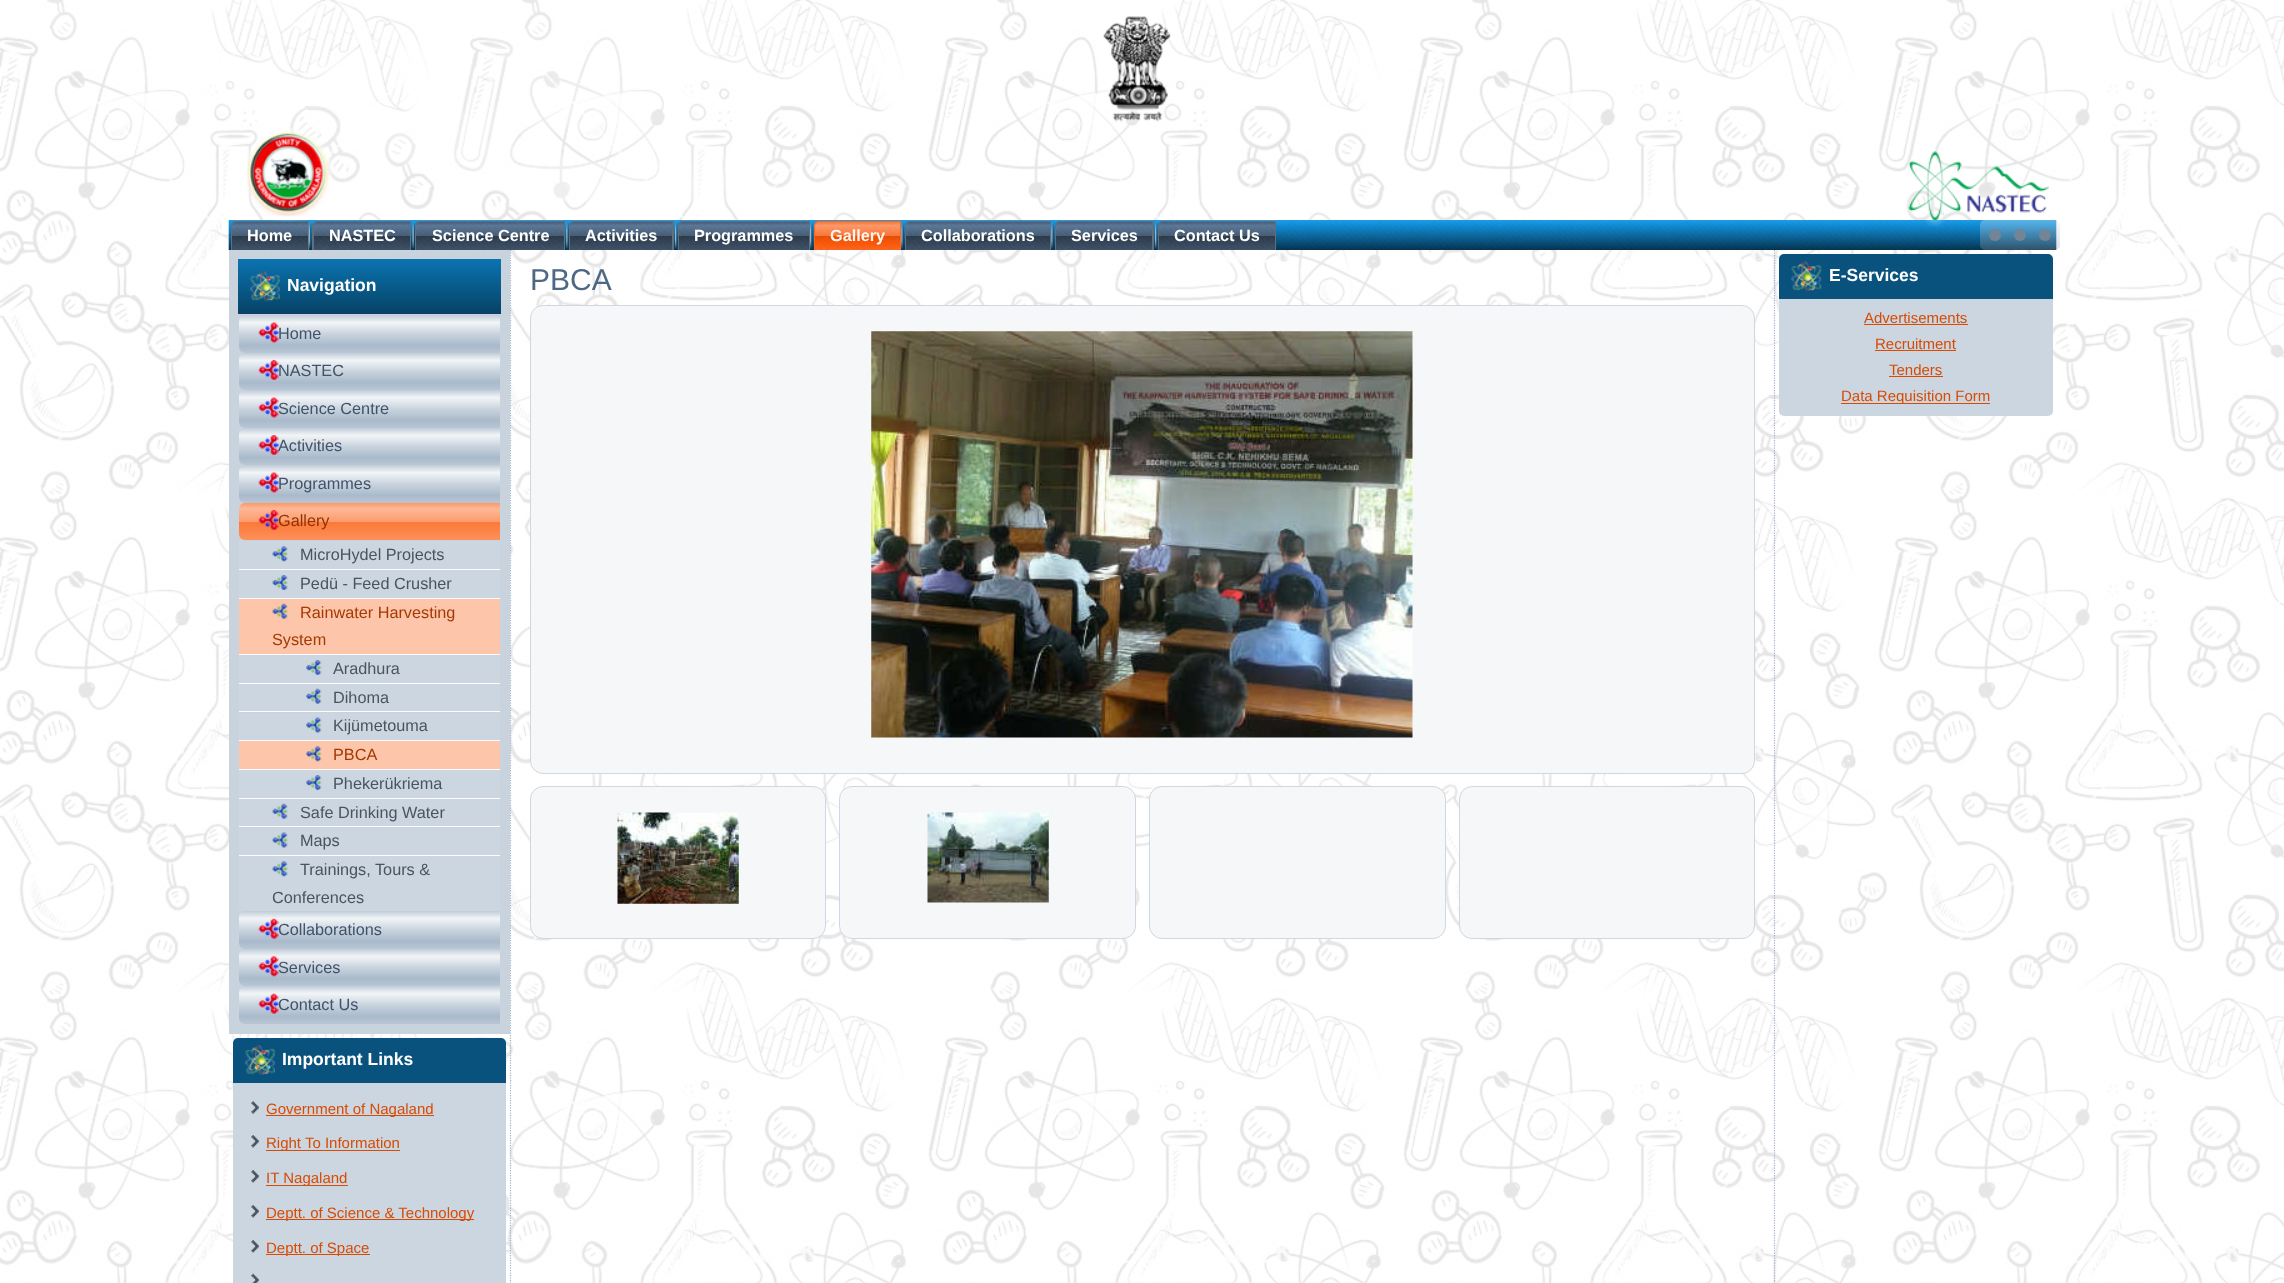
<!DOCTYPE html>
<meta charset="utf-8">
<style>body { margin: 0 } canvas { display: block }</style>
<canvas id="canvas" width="2284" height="1283"></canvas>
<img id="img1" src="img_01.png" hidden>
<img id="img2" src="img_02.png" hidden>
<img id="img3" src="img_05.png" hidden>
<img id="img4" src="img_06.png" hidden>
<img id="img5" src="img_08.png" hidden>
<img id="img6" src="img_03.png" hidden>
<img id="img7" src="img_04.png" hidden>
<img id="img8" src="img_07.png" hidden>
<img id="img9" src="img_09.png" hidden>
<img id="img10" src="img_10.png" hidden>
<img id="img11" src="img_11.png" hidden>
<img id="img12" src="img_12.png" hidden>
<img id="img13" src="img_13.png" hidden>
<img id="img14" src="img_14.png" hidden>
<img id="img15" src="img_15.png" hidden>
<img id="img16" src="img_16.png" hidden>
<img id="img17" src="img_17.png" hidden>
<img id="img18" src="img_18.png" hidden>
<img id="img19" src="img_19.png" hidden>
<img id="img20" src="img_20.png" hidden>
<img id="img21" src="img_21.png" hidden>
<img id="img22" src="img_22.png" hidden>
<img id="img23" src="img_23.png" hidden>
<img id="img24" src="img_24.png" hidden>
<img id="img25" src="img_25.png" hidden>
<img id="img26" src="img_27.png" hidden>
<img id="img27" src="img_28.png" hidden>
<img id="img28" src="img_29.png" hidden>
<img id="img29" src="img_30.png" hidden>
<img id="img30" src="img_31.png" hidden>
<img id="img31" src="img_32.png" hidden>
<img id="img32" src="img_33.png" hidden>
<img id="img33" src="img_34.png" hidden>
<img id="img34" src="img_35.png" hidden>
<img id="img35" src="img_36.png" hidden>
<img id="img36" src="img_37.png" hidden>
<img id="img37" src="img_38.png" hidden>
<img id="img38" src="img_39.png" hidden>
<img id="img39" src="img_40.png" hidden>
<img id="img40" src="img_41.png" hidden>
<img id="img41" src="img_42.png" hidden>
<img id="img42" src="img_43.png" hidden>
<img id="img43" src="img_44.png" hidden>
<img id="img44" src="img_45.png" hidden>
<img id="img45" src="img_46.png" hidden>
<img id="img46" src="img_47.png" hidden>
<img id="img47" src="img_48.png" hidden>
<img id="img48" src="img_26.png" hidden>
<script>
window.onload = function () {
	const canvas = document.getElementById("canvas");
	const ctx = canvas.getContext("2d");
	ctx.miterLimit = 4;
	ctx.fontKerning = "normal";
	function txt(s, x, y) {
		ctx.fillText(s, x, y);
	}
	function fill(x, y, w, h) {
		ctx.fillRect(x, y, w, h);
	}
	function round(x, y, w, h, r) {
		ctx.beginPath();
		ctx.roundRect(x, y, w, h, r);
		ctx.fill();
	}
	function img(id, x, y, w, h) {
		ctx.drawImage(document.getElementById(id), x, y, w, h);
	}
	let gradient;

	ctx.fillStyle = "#FFFFFF";
	fill(0, 0, 2284, 1283);
	img("img1", 0, 0, 2284, 1283);
	img("img2", 1103, 16, 68, 107);
	img("img3", 228, 220, 1829, 30);
	img("img4", 231, 221, 77, 29);
	ctx.fillStyle = "#5F7081";
	ctx.beginPath();
	ctx.moveTo(236, 221);
	ctx.lineTo(309, 221);
	ctx.lineTo(309, 250);
	ctx.lineTo(231, 250);
	ctx.lineTo(231, 226);
	ctx.bezierCurveTo(231, 223, 233, 221, 236, 221);
	ctx.closePath();
	ctx.moveTo(236, 222);
	ctx.lineTo(308, 222);
	ctx.lineTo(308, 250);
	ctx.lineTo(232, 250);
	ctx.lineTo(232, 226);
	ctx.bezierCurveTo(232, 224, 234, 222, 236, 222);
	ctx.closePath();
	ctx.fill("evenodd");
	img("img5", 312, 221, 100, 29);
	ctx.beginPath();
	ctx.moveTo(318, 221);
	ctx.lineTo(411, 221);
	ctx.lineTo(411, 250);
	ctx.lineTo(312, 250);
	ctx.lineTo(312, 226);
	ctx.bezierCurveTo(312, 223, 315, 221, 318, 221);
	ctx.closePath();
	ctx.moveTo(318, 222);
	ctx.lineTo(410, 222);
	ctx.lineTo(410, 250);
	ctx.lineTo(314, 250);
	ctx.lineTo(314, 226);
	ctx.bezierCurveTo(314, 224, 315, 222, 318, 222);
	ctx.closePath();
	ctx.fill("evenodd");
	img("img6", 246, 128, 86, 94);
	gradient = ctx.createLinearGradient(2020, 220, 2020, 250);
	gradient.addColorStop(0, "rgba(232, 235, 238, 0.3)");
	gradient.addColorStop(1, "rgba(138, 153, 168, 0.3)");
	ctx.fillStyle = gradient;
	round(1980, 220, 80, 30, 5);
	img("img7", 1907, 150, 142, 77);
	img("img8", 308, 222, 4, 27);
	img("img9", 412, 222, 3, 27);
	img("img10", 415, 221, 149, 29);
	ctx.fillStyle = "#5F7081";
	ctx.beginPath();
	ctx.moveTo(420, 221);
	ctx.lineTo(565, 221);
	ctx.lineTo(565, 250);
	ctx.lineTo(415, 250);
	ctx.lineTo(415, 226);
	ctx.bezierCurveTo(415, 223, 417, 221, 420, 221);
	ctx.closePath();
	ctx.moveTo(420, 222);
	ctx.lineTo(564, 222);
	ctx.lineTo(564, 250);
	ctx.lineTo(416, 250);
	ctx.lineTo(416, 226);
	ctx.bezierCurveTo(416, 224, 418, 222, 420, 222);
	ctx.closePath();
	ctx.fill("evenodd");
	img("img11", 566, 222, 3, 27);
	img("img12", 568, 221, 104, 29);
	ctx.beginPath();
	ctx.moveTo(574, 221);
	ctx.lineTo(674, 221);
	ctx.lineTo(674, 250);
	ctx.lineTo(569, 250);
	ctx.lineTo(569, 226);
	ctx.bezierCurveTo(569, 223, 571, 221, 574, 221);
	ctx.closePath();
	ctx.moveTo(574, 222);
	ctx.lineTo(672, 222);
	ctx.lineTo(672, 250);
	ctx.lineTo(570, 250);
	ctx.lineTo(570, 226);
	ctx.bezierCurveTo(570, 224, 572, 222, 574, 222);
	ctx.closePath();
	ctx.fill("evenodd");
	img("img13", 675, 222, 3, 27);
	img("img14", 677, 221, 132, 29);
	ctx.beginPath();
	ctx.moveTo(682, 221);
	ctx.lineTo(810, 221);
	ctx.lineTo(810, 250);
	ctx.lineTo(678, 250);
	ctx.lineTo(678, 226);
	ctx.bezierCurveTo(678, 223, 680, 221, 682, 221);
	ctx.closePath();
	ctx.moveTo(682, 222);
	ctx.lineTo(809, 222);
	ctx.lineTo(809, 250);
	ctx.lineTo(679, 250);
	ctx.lineTo(679, 226);
	ctx.bezierCurveTo(679, 224, 680, 222, 682, 222);
	ctx.closePath();
	ctx.fill("evenodd");
	img("img15", 810, 222, 3, 27);
	img("img16", 813, 221, 89, 29);
	ctx.fillStyle = "#FA681E";
	ctx.beginPath();
	ctx.moveTo(819, 221);
	ctx.lineTo(901, 221);
	ctx.lineTo(901, 250);
	ctx.lineTo(814, 250);
	ctx.lineTo(814, 226);
	ctx.bezierCurveTo(814, 223, 816, 221, 819, 221);
	ctx.closePath();
	ctx.moveTo(819, 222);
	ctx.lineTo(900, 222);
	ctx.lineTo(900, 250);
	ctx.lineTo(815, 250);
	ctx.lineTo(815, 226);
	ctx.bezierCurveTo(815, 224, 817, 222, 819, 222);
	ctx.closePath();
	ctx.fill("evenodd");
	img("img17", 901, 222, 3, 27);
	img("img18", 905, 221, 147, 29);
	ctx.fillStyle = "#5F7081";
	ctx.beginPath();
	ctx.moveTo(910, 221);
	ctx.lineTo(1051, 221);
	ctx.lineTo(1051, 250);
	ctx.lineTo(905, 250);
	ctx.lineTo(905, 226);
	ctx.bezierCurveTo(905, 223, 907, 221, 910, 221);
	ctx.closePath();
	ctx.moveTo(910, 222);
	ctx.lineTo(1050, 222);
	ctx.lineTo(1050, 250);
	ctx.lineTo(906, 250);
	ctx.lineTo(906, 226);
	ctx.bezierCurveTo(906, 224, 908, 222, 910, 222);
	ctx.closePath();
	ctx.fill("evenodd");
	img("img19", 1051, 222, 3, 27);
	img("img20", 1055, 221, 97, 29);
	ctx.beginPath();
	ctx.moveTo(1060, 221);
	ctx.lineTo(1154, 221);
	ctx.lineTo(1154, 250);
	ctx.lineTo(1055, 250);
	ctx.lineTo(1055, 226);
	ctx.bezierCurveTo(1055, 223, 1057, 221, 1060, 221);
	ctx.closePath();
	ctx.moveTo(1060, 222);
	ctx.lineTo(1152, 222);
	ctx.lineTo(1152, 250);
	ctx.lineTo(1056, 250);
	ctx.lineTo(1056, 226);
	ctx.bezierCurveTo(1056, 224, 1058, 222, 1060, 222);
	ctx.closePath();
	ctx.fill("evenodd");
	img("img21", 1155, 222, 3, 27);
	img("img22", 1157, 221, 120, 29);
	ctx.beginPath();
	ctx.moveTo(1162, 221);
	ctx.lineTo(1276, 221);
	ctx.lineTo(1276, 250);
	ctx.lineTo(1158, 250);
	ctx.lineTo(1158, 226);
	ctx.bezierCurveTo(1158, 223, 1160, 221, 1162, 221);
	ctx.closePath();
	ctx.moveTo(1162, 222);
	ctx.lineTo(1275, 222);
	ctx.lineTo(1275, 250);
	ctx.lineTo(1159, 250);
	ctx.lineTo(1159, 226);
	ctx.bezierCurveTo(1159, 224, 1160, 222, 1162, 222);
	ctx.closePath();
	ctx.fill("evenodd");
	ctx.fillStyle = "#728597";
	ctx.beginPath();
	ctx.arc(1995, 235, 6, 0, Math.PI * 2);
	ctx.fill();
	ctx.beginPath();
	ctx.arc(2020, 235, 6, 0, Math.PI * 2);
	ctx.fill();
	ctx.beginPath();
	ctx.arc(2045, 235, 6, 0, Math.PI * 2);
	ctx.fill();
	ctx.beginPath();
	ctx.moveTo(510.5, 250);
	ctx.lineTo(510.5, 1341);
	ctx.strokeStyle = "#A3B4C8";
	ctx.lineWidth = 1.2;
	ctx.setLineDash([1.25, 1.25]);
	ctx.stroke();
	ctx.fillStyle = "#C9D3DE";
	fill(229, 250, 281, 784);
	gradient = ctx.createLinearGradient(369, 259, 369, 314);
	gradient.addColorStop(0, "#0B74B1");
	gradient.addColorStop(1, "#064265");
	ctx.fillStyle = gradient;
	fill(238, 259, 263, 55);
	img("img23", 250, 271, 30, 31);
	gradient = ctx.createLinearGradient(369, 315, 369, 353);
	gradient.addColorStop(0, "#BFCCD9");
	gradient.addColorStop(0.2, "#F2F5F7");
	gradient.addColorStop(0.5, "#C9D3DE");
	gradient.addColorStop(0.8, "#A9BACB");
	gradient.addColorStop(1, "#B9C6D5");
	ctx.fillStyle = gradient;
	ctx.beginPath();
	ctx.roundRect(239, 315, 261, 38, [6, 0, 0, 6]);
	ctx.fill();
	img("img24", 258, 322, 21, 21);
	gradient = ctx.createLinearGradient(369, 353, 369, 390);
	gradient.addColorStop(0, "#BFCCD9");
	gradient.addColorStop(0.2, "#F2F5F7");
	gradient.addColorStop(0.5, "#C9D3DE");
	gradient.addColorStop(0.8, "#A9BACB");
	gradient.addColorStop(1, "#B9C6D5");
	ctx.fillStyle = gradient;
	ctx.beginPath();
	ctx.roundRect(239, 353, 261, 37, [6, 0, 0, 6]);
	ctx.fill();
	img("img25", 258, 360, 21, 20);
	gradient = ctx.createLinearGradient(369, 390, 369, 428);
	gradient.addColorStop(0, "#BFCCD9");
	gradient.addColorStop(0.2, "#F2F5F7");
	gradient.addColorStop(0.5, "#C9D3DE");
	gradient.addColorStop(0.8, "#A9BACB");
	gradient.addColorStop(1, "#B9C6D5");
	ctx.fillStyle = gradient;
	ctx.beginPath();
	ctx.roundRect(239, 390, 261, 38, [6, 0, 0, 6]);
	ctx.fill();
	img("img24", 258, 397, 21, 21);
	gradient = ctx.createLinearGradient(369, 428, 369, 465);
	gradient.addColorStop(0, "#BFCCD9");
	gradient.addColorStop(0.2, "#F2F5F7");
	gradient.addColorStop(0.5, "#C9D3DE");
	gradient.addColorStop(0.8, "#A9BACB");
	gradient.addColorStop(1, "#B9C6D5");
	ctx.fillStyle = gradient;
	ctx.beginPath();
	ctx.roundRect(239, 428, 261, 37, [6, 0, 0, 6]);
	ctx.fill();
	gradient = ctx.createLinearGradient(369, 465, 369, 503);
	gradient.addColorStop(0, "#BFCCD9");
	gradient.addColorStop(0.2, "#F2F5F7");
	gradient.addColorStop(0.5, "#C9D3DE");
	gradient.addColorStop(0.8, "#A9BACB");
	gradient.addColorStop(1, "#B9C6D5");
	ctx.fillStyle = gradient;
	ctx.beginPath();
	ctx.roundRect(239, 465, 261, 38, [6, 0, 0, 6]);
	ctx.fill();
	img("img24", 258, 472, 21, 21);
	gradient = ctx.createLinearGradient(369, 503, 369, 540);
	gradient.addColorStop(0, "#FC9764");
	gradient.addColorStop(0.15, "#FDB896");
	gradient.addColorStop(0.5, "#FC9D6E");
	gradient.addColorStop(0.5, "#FB7837");
	gradient.addColorStop(1, "#FC905A");
	ctx.fillStyle = gradient;
	ctx.beginPath();
	ctx.roundRect(239, 503, 261, 37, [6, 0, 0, 6]);
	ctx.fill();
	img("img26", 258, 510, 21, 20);
	ctx.fillStyle = "#CCD6E0";
	fill(239, 541, 261, 28);
	img("img27", 272, 546, 16, 16);
	ctx.fillStyle = "#FCFCFD";
	fill(239, 569, 261, 1);
	ctx.fillStyle = "#CCD6E0";
	fill(239, 570, 261, 28);
	img("img28", 272, 575, 16, 15);
	ctx.fillStyle = "#FCFCFD";
	fill(239, 598, 261, 1);
	ctx.fillStyle = "#FDC6AA";
	fill(239, 599, 261, 55);
	img("img29", 272, 603, 16, 16);
	ctx.fillStyle = "#FCFCFD";
	fill(239, 654, 261, 1);
	ctx.fillStyle = "#CCD6E0";
	fill(239, 655, 261, 28);
	img("img30", 306, 660, 16, 15);
	ctx.fillStyle = "#FCFCFD";
	fill(239, 683, 261, 1);
	ctx.fillStyle = "#CCD6E0";
	fill(239, 684, 261, 27);
	img("img31", 306, 688, 16, 16);
	ctx.fillStyle = "#FCFCFD";
	fill(239, 711, 261, 1);
	ctx.fillStyle = "#CCD6E0";
	fill(239, 713, 261, 27);
	img("img32", 306, 717, 16, 16);
	ctx.fillStyle = "#FCFCFD";
	fill(239, 740, 261, 1);
	ctx.fillStyle = "#FDC6AA";
	fill(239, 741, 261, 28);
	img("img33", 306, 746, 16, 16);
	ctx.fillStyle = "#FCFCFD";
	fill(239, 769, 261, 1);
	ctx.fillStyle = "#CCD6E0";
	fill(239, 770, 261, 28);
	img("img34", 306, 775, 16, 15);
	ctx.fillStyle = "#FCFCFD";
	fill(239, 798, 261, 1);
	ctx.fillStyle = "#CCD6E0";
	fill(239, 799, 261, 27);
	img("img35", 272, 803, 16, 16);
	ctx.fillStyle = "#FCFCFD";
	fill(239, 826, 261, 1);
	ctx.fillStyle = "#CCD6E0";
	fill(239, 828, 261, 27);
	img("img36", 272, 832, 16, 16);
	ctx.fillStyle = "#FCFCFD";
	fill(239, 855, 261, 1);
	ctx.fillStyle = "#CCD6E0";
	fill(239, 856, 261, 55);
	img("img27", 272, 861, 16, 16);
	gradient = ctx.createLinearGradient(369, 911, 369, 949);
	gradient.addColorStop(0, "#BFCCD9");
	gradient.addColorStop(0.2, "#F2F5F7");
	gradient.addColorStop(0.5, "#C9D3DE");
	gradient.addColorStop(0.8, "#A9BACB");
	gradient.addColorStop(1, "#B9C6D5");
	ctx.fillStyle = gradient;
	ctx.beginPath();
	ctx.roundRect(239, 911, 261, 38, [6, 0, 0, 6]);
	ctx.fill();
	img("img37", 258, 918, 21, 21);
	gradient = ctx.createLinearGradient(369, 949, 369, 986);
	gradient.addColorStop(0, "#BFCCD9");
	gradient.addColorStop(0.2, "#F2F5F7");
	gradient.addColorStop(0.5, "#C9D3DE");
	gradient.addColorStop(0.8, "#A9BACB");
	gradient.addColorStop(1, "#B9C6D5");
	ctx.fillStyle = gradient;
	ctx.beginPath();
	ctx.roundRect(239, 949, 261, 37, [6, 0, 0, 6]);
	ctx.fill();
	img("img38", 258, 956, 21, 21);
	gradient = ctx.createLinearGradient(369, 986, 369, 1024);
	gradient.addColorStop(0, "#BFCCD9");
	gradient.addColorStop(0.2, "#F2F5F7");
	gradient.addColorStop(0.5, "#C9D3DE");
	gradient.addColorStop(0.8, "#A9BACB");
	gradient.addColorStop(1, "#B9C6D5");
	ctx.fillStyle = gradient;
	ctx.beginPath();
	ctx.roundRect(239, 986, 261, 38, [6, 0, 0, 6]);
	ctx.fill();
	img("img37", 258, 993, 21, 21);
	ctx.fillStyle = "#08527D";
	ctx.beginPath();
	ctx.roundRect(233, 1038, 273, 45, [5, 5, 0, 0]);
	ctx.fill();
	img("img39", 245, 1045, 30, 30);
	ctx.fillStyle = "#CCD6E0";
	fill(233, 1083, 273, 200);
	img("img40", 251, 1101, 8, 13);
	ctx.fillStyle = "#D74B04";
	fill(266, 1115, 168, 1);
	img("img41", 251, 1135, 8, 13);
	fill(266, 1150, 134, 1);
	img("img42", 251, 1170, 8, 13);
	fill(266, 1185, 82, 1);
	img("img41", 251, 1205, 8, 13);
	fill(266, 1219, 208, 1);
	img("img41", 251, 1240, 8, 13);
	fill(266, 1254, 104, 1);
	img("img43", 251, 1273, 8, 10);
	ctx.fillStyle = "#F6F7F8";
	ctx.beginPath();
	ctx.roundRect(530.5, 305.5, 1224, 468, 12.5);
	ctx.fill();
	ctx.strokeStyle = "#CFD8E2";
	ctx.lineWidth = 1;
	ctx.setLineDash([]);
	ctx.stroke();
	img("img44", 871, 331, 542, 407);
	ctx.beginPath();
	ctx.roundRect(530.5, 786.5, 295, 152, 12.5);
	ctx.fill();
	ctx.stroke();
	img("img45", 617, 812, 122, 92);
	ctx.beginPath();
	ctx.roundRect(839.5, 786.5, 296, 152, 12.5);
	ctx.fill();
	ctx.stroke();
	img("img46", 927, 812, 122, 91);
	ctx.beginPath();
	ctx.roundRect(1149.5, 786.5, 296, 152, 12.5);
	ctx.fill();
	ctx.stroke();
	ctx.beginPath();
	ctx.roundRect(1459.5, 786.5, 295, 152, 12.5);
	ctx.fill();
	ctx.stroke();
	ctx.beginPath();
	ctx.moveTo(1774.5, 250);
	ctx.lineTo(1774.5, 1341);
	ctx.strokeStyle = "#A3B4C8";
	ctx.lineWidth = 1.2;
	ctx.setLineDash([1.25, 1.25]);
	ctx.stroke();
	ctx.fillStyle = "#08527D";
	ctx.beginPath();
	ctx.roundRect(1779, 254, 274, 45, [5, 5, 0, 0]);
	ctx.fill();
	img("img47", 1791, 261, 31, 31);
	ctx.fillStyle = "#CCD6E0";
	ctx.beginPath();
	ctx.roundRect(1779, 299, 274, 117, [0, 0, 5, 5]);
	ctx.fill();
	ctx.fillStyle = "#D74B04";
	fill(1864, 324, 104, 1);
	fill(1875, 350, 81, 1);
	fill(1889, 376, 54, 1);
	fill(1841, 403, 149, 1);
	ctx.font = "bold 16.25px Liberation Sans";
	ctx.fillStyle = "#FFFFFF";
	txt("Home", 247, 241);
	txt("NASTEC", 329, 241);
	txt("Science Centre", 432, 241);
	txt("Activities", 585, 241);
	txt("Programmes", 694, 241);
	ctx.fillStyle = "#FFF5F0";
	txt("Gallery", 830, 241);
	ctx.fillStyle = "#FFFFFF";
	txt("Collaborations", 921, 241);
	txt("Services", 1071, 241);
	txt("Contact Us", 1174, 241);
	ctx.font = "bold 17.5px Liberation Sans";
	txt("Navigation", 287, 291);
	ctx.font = "16.25px Liberation Sans";
	ctx.fillStyle = "#3F5369";
	txt("Home", 278, 339);
	txt("NASTEC", 278, 376);
	txt("Science Centre", 278, 414);
	txt("Activities", 278, 451);
	img("img48", 258, 435, 21, 20);
	txt("Programmes", 278, 489);
	ctx.fillStyle = "#913203";
	txt("Gallery", 278, 526);
	ctx.fillStyle = "#485461";
	txt("MicroHydel Projects", 300, 560);
	txt("Pedü - Feed Crusher", 300, 589);
	ctx.fillStyle = "#A53903";
	txt("Rainwater Harvesting", 300, 618);
	txt("System", 272, 645);
	ctx.fillStyle = "#485461";
	txt("Aradhura", 333, 674);
	txt("Dihoma", 333, 703);
	txt("Kijümetouma", 333, 731);
	ctx.fillStyle = "#A53903";
	txt("PBCA", 333, 760);
	ctx.fillStyle = "#485461";
	txt("Phekerükriema", 333, 789);
	txt("Safe Drinking Water", 300, 818);
	txt("Maps", 300, 846);
	txt("Trainings, Tours &", 300, 875);
	txt("Conferences", 272, 903);
	ctx.fillStyle = "#3F5369";
	txt("Collaborations", 278, 935);
	txt("Services", 278, 973);
	txt("Contact Us", 278, 1010);
	ctx.font = "bold 17.5px Liberation Sans";
	ctx.fillStyle = "#FFFFFF";
	txt("Important Links", 282, 1065);
	ctx.font = "15px Liberation Sans";
	ctx.fillStyle = "#D74B04";
	txt("Government of Nagaland", 266, 1114);
	txt("Right To Information", 266, 1148);
	txt("IT Nagaland", 266, 1183);
	txt("Deptt. of Science & Technology", 266, 1218);
	txt("Deptt. of Space", 266, 1253);
	ctx.font = "30px Liberation Sans";
	ctx.fillStyle = "#4E6883";
	txt("PBCA", 530, 290);
	ctx.font = "bold 17.5px Liberation Sans";
	ctx.fillStyle = "#FFFFFF";
	txt("E-Services", 1829, 281);
	ctx.font = "15px Liberation Sans";
	ctx.fillStyle = "#D74B04";
	txt("Advertisements", 1864, 323);
	txt("Recruitment", 1875, 349);
	txt("Tenders", 1889, 375);
	txt("Data Requisition Form", 1841, 401);
};
</script>
